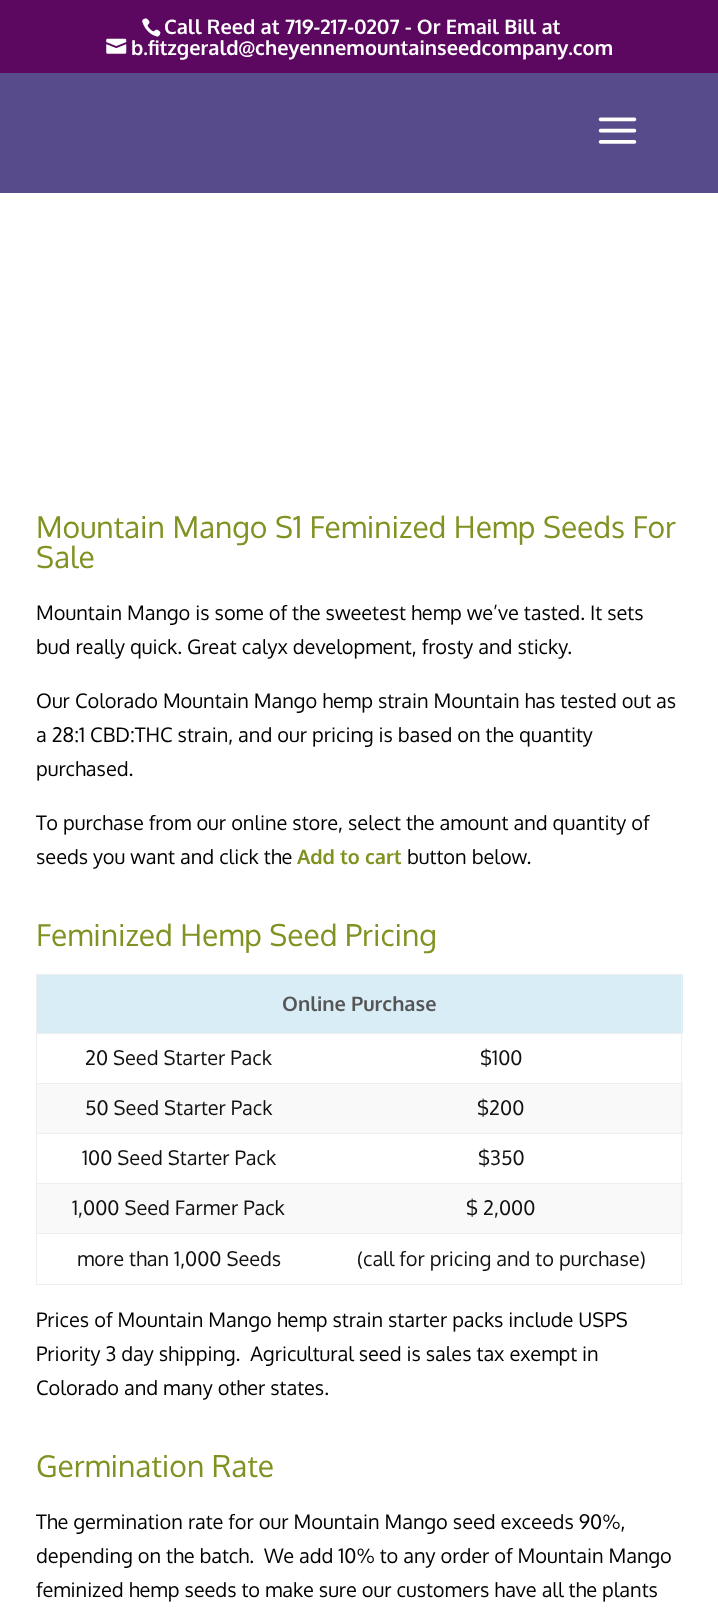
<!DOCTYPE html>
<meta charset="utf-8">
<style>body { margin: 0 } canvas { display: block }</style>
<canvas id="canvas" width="718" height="1622"></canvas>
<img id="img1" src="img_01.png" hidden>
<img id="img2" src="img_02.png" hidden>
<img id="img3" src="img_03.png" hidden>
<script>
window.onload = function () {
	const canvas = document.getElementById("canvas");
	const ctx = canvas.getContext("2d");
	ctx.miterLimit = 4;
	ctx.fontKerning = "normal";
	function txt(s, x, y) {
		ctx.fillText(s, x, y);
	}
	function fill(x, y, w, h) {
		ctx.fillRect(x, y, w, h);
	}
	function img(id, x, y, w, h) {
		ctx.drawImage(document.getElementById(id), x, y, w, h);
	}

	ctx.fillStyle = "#FFFFFF";
	fill(0, 0, 718, 1622);
	ctx.fillStyle = "#5C0760";
	fill(0, 0, 718, 73);
	img("img1", 142, 18, 19, 19);
	img("img2", 106, 38, 21, 16);
	ctx.fillStyle = "#574B8C";
	fill(0, 73, 718, 120);
	img("img3", 598, 117, 39, 27);
	ctx.fillStyle = "#EEEEEE";
	fill(36, 974, 647, 1);
	ctx.fillStyle = "#D9EDF7";
	fill(37, 975, 646, 58);
	ctx.fillStyle = "#F9F9F9";
	fill(37, 1084, 646, 49);
	fill(37, 1184, 646, 49);
	ctx.fillStyle = "#EEEEEE";
	fill(681, 974, 1, 311);
	fill(36, 1284, 647, 1);
	fill(36, 974, 1, 311);
	fill(36, 1033, 647, 1);
	fill(36, 1083, 647, 1);
	fill(36, 1133, 647, 1);
	fill(36, 1183, 647, 1);
	fill(36, 1233, 647, 1);
	ctx.font = "bold 20px Oxygen";
	ctx.fillStyle = "#FFFFFF";
	txt("Call Reed at 719-217-0207 - Or Email Bill at", 164, 34);
	txt("b.fitzgerald@cheyennemountainseedcompany.com", 131, 55);
	ctx.font = "30px Oxygen";
	ctx.fillStyle = "#7E9321";
	txt("Mountain Mango S1 Feminized Hemp Seeds For", 36, 538);
	txt("Sale", 36, 568);
	ctx.font = "20px Oxygen";
	ctx.fillStyle = "#000000";
	txt("Mountain Mango is some of the sweetest hemp we’ve tasted. It sets", 36, 620);
	txt("bud really quick. Great calyx development, frosty and sticky.", 36, 654);
	txt("Our Colorado Mountain Mango hemp strain Mountain has tested out as", 36, 708);
	txt("a 28:1 CBD:THC strain, and our pricing is based on the quantity", 36, 742);
	txt("purchased.", 36, 776);
	txt("To purchase from our online store, select the amount and quantity of", 36, 830);
	txt("seeds you want and click the", 36, 864);
	ctx.font = "bold 20px Oxygen";
	ctx.fillStyle = "#7E9321";
	txt("Add to cart", 297, 864);
	ctx.font = "20px Oxygen";
	ctx.fillStyle = "#000000";
	txt("button below.", 407, 864);
	ctx.font = "30px Oxygen";
	ctx.fillStyle = "#7E9321";
	txt("Feminized Hemp Seed Pricing", 36, 946);
	ctx.font = "bold 20px Oxygen";
	ctx.fillStyle = "#555555";
	txt("Online Purchase", 282, 1011);
	ctx.font = "20px Oxygen";
	ctx.fillStyle = "#111111";
	txt("20 Seed Starter Pack", 85, 1065);
	txt("$100", 480, 1065);
	txt("50 Seed Starter Pack", 85, 1115);
	txt("$200", 477, 1115);
	txt("100 Seed Starter Pack", 82, 1165);
	txt("$350", 478, 1165);
	txt("1,000 Seed Farmer Pack", 72, 1215);
	txt("$ 2,000", 466, 1215);
	txt("more than 1,000 Seeds", 77, 1266);
	txt("(call for pricing and to purchase)", 357, 1266);
	ctx.fillStyle = "#000000";
	txt("Prices of Mountain Mango hemp strain starter packs include USPS", 36, 1327);
	txt("Priority 3 day shipping.  Agricultural seed is sales tax exempt in", 36, 1361);
	txt("Colorado and many other states.", 36, 1395);
	ctx.font = "30px Oxygen";
	ctx.fillStyle = "#7E9321";
	txt("Germination Rate", 36, 1477);
	ctx.font = "20px Oxygen";
	ctx.fillStyle = "#000000";
	txt("The germination rate for our Mountain Mango seed exceeds 90%,", 36, 1529);
	txt("depending on the batch.  We add 10% to any order of Mountain Mango", 36, 1563);
	txt("feminized hemp seeds to make sure our customers have all the plants", 36, 1597);
};
</script>
